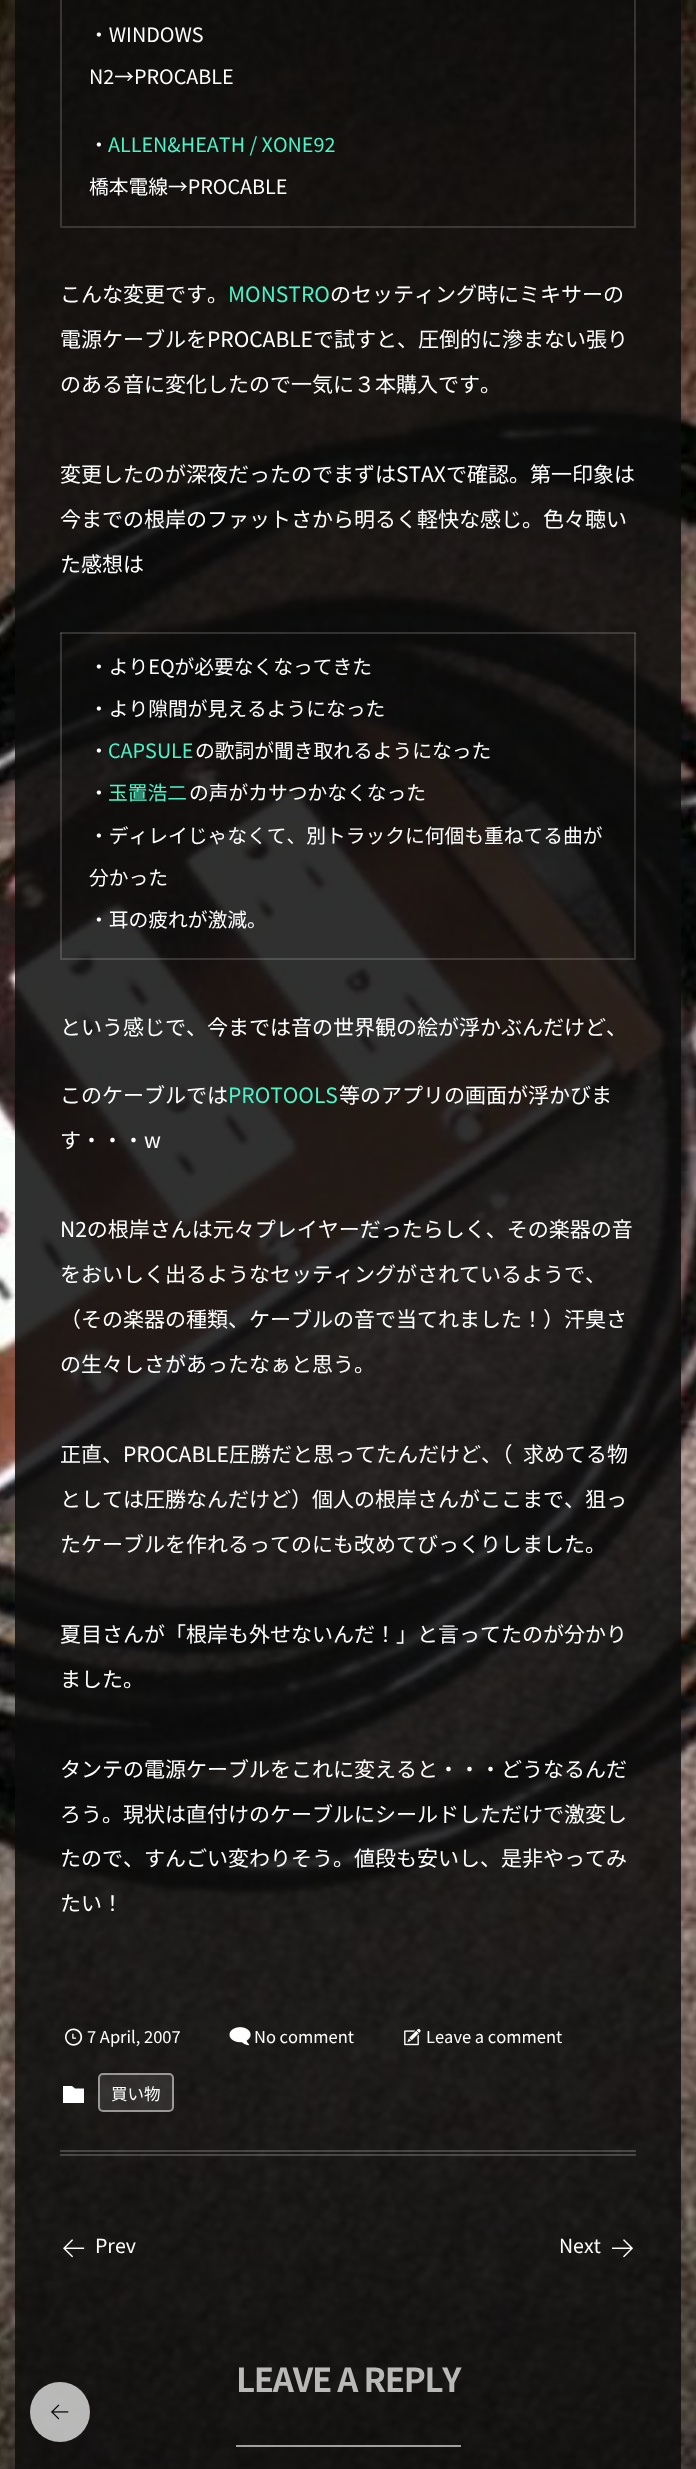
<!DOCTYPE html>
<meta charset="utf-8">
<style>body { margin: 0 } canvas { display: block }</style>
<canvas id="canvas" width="696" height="2469"></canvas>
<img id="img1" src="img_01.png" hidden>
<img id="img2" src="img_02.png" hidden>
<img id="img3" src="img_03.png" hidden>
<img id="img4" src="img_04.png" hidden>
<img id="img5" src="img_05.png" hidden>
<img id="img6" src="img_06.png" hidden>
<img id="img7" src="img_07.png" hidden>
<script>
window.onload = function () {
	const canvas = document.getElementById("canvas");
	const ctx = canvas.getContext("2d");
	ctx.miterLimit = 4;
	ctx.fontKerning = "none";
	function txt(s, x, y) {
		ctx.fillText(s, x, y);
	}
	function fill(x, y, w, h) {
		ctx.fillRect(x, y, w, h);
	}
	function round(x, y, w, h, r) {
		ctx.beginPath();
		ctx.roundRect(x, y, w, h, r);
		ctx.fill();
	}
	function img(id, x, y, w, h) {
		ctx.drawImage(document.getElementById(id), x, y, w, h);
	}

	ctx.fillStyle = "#FFFFFF";
	fill(0, 0, 696, 2469);
	img("img1", 0, 0, 696, 2469);
	ctx.fillStyle = "rgba(255, 255, 255, 0.16)";
	ctx.beginPath();
	ctx.moveTo(636, -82);
	ctx.lineTo(636, 228);
	ctx.lineTo(634, 226);
	ctx.lineTo(634, -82);
	ctx.closePath();
	ctx.fill();
	ctx.beginPath();
	ctx.moveTo(636, 228);
	ctx.lineTo(60, 228);
	ctx.lineTo(62, 226);
	ctx.lineTo(634, 226);
	ctx.closePath();
	ctx.fill();
	ctx.beginPath();
	ctx.moveTo(60, 228);
	ctx.lineTo(60, -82);
	ctx.lineTo(62, -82);
	ctx.lineTo(62, 226);
	ctx.closePath();
	ctx.fill();
	fill(60, 632, 576, 2);
	ctx.beginPath();
	ctx.moveTo(636, 633);
	ctx.lineTo(636, 960);
	ctx.lineTo(634, 958);
	ctx.lineTo(634, 633);
	ctx.closePath();
	ctx.fill();
	ctx.beginPath();
	ctx.moveTo(636, 960);
	ctx.lineTo(60, 960);
	ctx.lineTo(62, 958);
	ctx.lineTo(634, 958);
	ctx.closePath();
	ctx.fill();
	ctx.beginPath();
	ctx.moveTo(60, 960);
	ctx.lineTo(60, 633);
	ctx.lineTo(62, 633);
	ctx.lineTo(62, 958);
	ctx.closePath();
	ctx.fill();
	ctx.fillStyle = "rgba(255, 255, 255, 0.2)";
	fill(60, 2150, 576, 2);
	fill(60, 2154, 576, 2);
	img("img2", 65, 2028, 18, 18);
	img("img3", 229, 2027, 22, 19);
	img("img4", 404, 2028, 17, 18);
	ctx.fillStyle = "#FFFFFF";
	ctx.beginPath();
	ctx.moveTo(72, 2086);
	ctx.lineTo(75, 2088.5);
	ctx.lineTo(84, 2088.5);
	ctx.lineTo(84, 2103);
	ctx.lineTo(63, 2103);
	ctx.lineTo(63, 2086);
	ctx.closePath();
	ctx.fill();
	ctx.fillStyle = "rgba(255, 255, 255, 0.1)";
	round(98, 2073, 76, 39, 5);
	ctx.beginPath();
	ctx.roundRect(99, 2074, 74, 37, 4);
	ctx.strokeStyle = "rgba(255, 255, 255, 0.5)";
	ctx.lineWidth = 2;
	ctx.stroke();
	img("img5", 63, 2239, 22, 19);
	img("img6", 612, 2239, 21, 19);
	ctx.fillStyle = "rgba(255, 255, 255, 0.6)";
	fill(236, 2445, 225, 2);
	ctx.fillStyle = "rgba(255, 255, 255, 0.7)";
	ctx.beginPath();
	ctx.arc(60, 2412, 30, 0, Math.PI * 2);
	ctx.fill();
	img("img7", 51, 2404, 18, 16);
	ctx.font = "19.75px Noto Sans JP";
	ctx.fillStyle = "#FFFFFF";
	txt("・WINDOWS", 89, 42);
	txt("N2→PROCABLE", 89, 84);
	txt("・", 89, 152);
	ctx.fillStyle = "#4BF4C7";
	txt("ALLEN&HEATH / XONE92", 108, 152);
	ctx.fillStyle = "#FFFFFF";
	txt("橋本電線→PROCABLE", 89, 194);
	ctx.font = "21px Noto Sans JP";
	txt("こんな変更です。", 60, 302);
	ctx.fillStyle = "#4BF4C7";
	txt("MONSTRO", 228, 302);
	ctx.fillStyle = "#FFFFFF";
	txt("のセッティング時にミキサーの", 330, 302);
	txt("電源ケーブルをPROCABLEで試すと、圧倒的に滲まない張り", 60, 347);
	txt("のある音に変化したので一気に３本購入です。", 60, 392);
	txt("変更したのが深夜だったのでまずはSTAXで確認。第一印象は", 60, 482);
	txt("今までの根岸のファットさから明るく軽快な感じ。色々聴い", 60, 527);
	txt("た感想は", 60, 572);
	ctx.font = "19.75px Noto Sans JP";
	txt("・よりEQが必要なくなってきた", 89, 674);
	txt("・より隙間が見えるようになった", 89, 716);
	txt("・", 89, 758);
	ctx.fillStyle = "#4BF4C7";
	txt("CAPSULE", 108, 758);
	ctx.fillStyle = "#FFFFFF";
	txt("の歌詞が聞き取れるようになった", 195, 758);
	txt("・", 89, 800);
	ctx.fillStyle = "#4BF4C7";
	txt("玉置浩二", 108, 800);
	ctx.fillStyle = "#FFFFFF";
	txt("の声がカサつかなくなった", 189, 800);
	txt("・ディレイじゃなくて、別トラックに何個も重ねてる曲が", 89, 843);
	txt("分かった", 89, 885);
	txt("・耳の疲れが激減。", 89, 927);
	ctx.font = "21px Noto Sans JP";
	txt("という感じで、今までは音の世界観の絵が浮かぶんだけど、", 60, 1035);
	txt("このケーブルでは", 60, 1103);
	ctx.fillStyle = "#4BF4C7";
	txt("PROTOOLS", 228, 1103);
	ctx.fillStyle = "#FFFFFF";
	txt("等のアプリの画面が浮かびま", 339, 1103);
	txt("す・・・w", 60, 1148);
	txt("N2の根岸さんは元々プレイヤーだったらしく、その楽器の音", 60, 1237);
	txt("をおいしく出るようなセッティングがされているようで、", 60, 1282);
	txt("（その楽器の種類、ケーブルの音で当てれました！）汗臭さ", 60, 1327);
	txt("の生々しさがあったなぁと思う。", 60, 1372);
	txt("正直、PROCABLE圧勝だと思ってたんだけど、（", 60, 1462);
	txt("求めてる物", 523, 1462);
	txt("としては圧勝なんだけど）個人の根岸さんがここまで、狙っ", 60, 1507);
	txt("たケーブルを作れるってのにも改めてびっくりしました。", 60, 1552);
	txt("夏目さんが「根岸も外せないんだ！」と言ってたのが分かり", 60, 1642);
	txt("ました。", 60, 1687);
	txt("タンテの電源ケーブルをこれに変えると・・・どうなるんだ", 60, 1777);
	txt("ろう。現状は直付けのケーブルにシールドしただけで激変し", 60, 1822);
	txt("たので、すんごい変わりそう。値段も安いし、是非やってみ", 60, 1866);
	txt("たい！", 60, 1911);
	ctx.font = "16.5px Noto Sans JP";
	txt("7 April, 2007", 87, 2043);
	txt("No comment", 254, 2043);
	txt("Leave a comment", 426, 2043);
	txt("買い物", 111, 2100);
	ctx.font = "19.5px Noto Sans JP";
	txt("Prev", 95, 2253);
	txt("Next", 559, 2253);
	ctx.letterSpacing = "-1.25px";
	ctx.font = "bold 33px Noto Sans JP";
	ctx.fillStyle = "#B9B9B8";
	txt("LEAVE A REPLY", 236, 2392);
};
</script>
